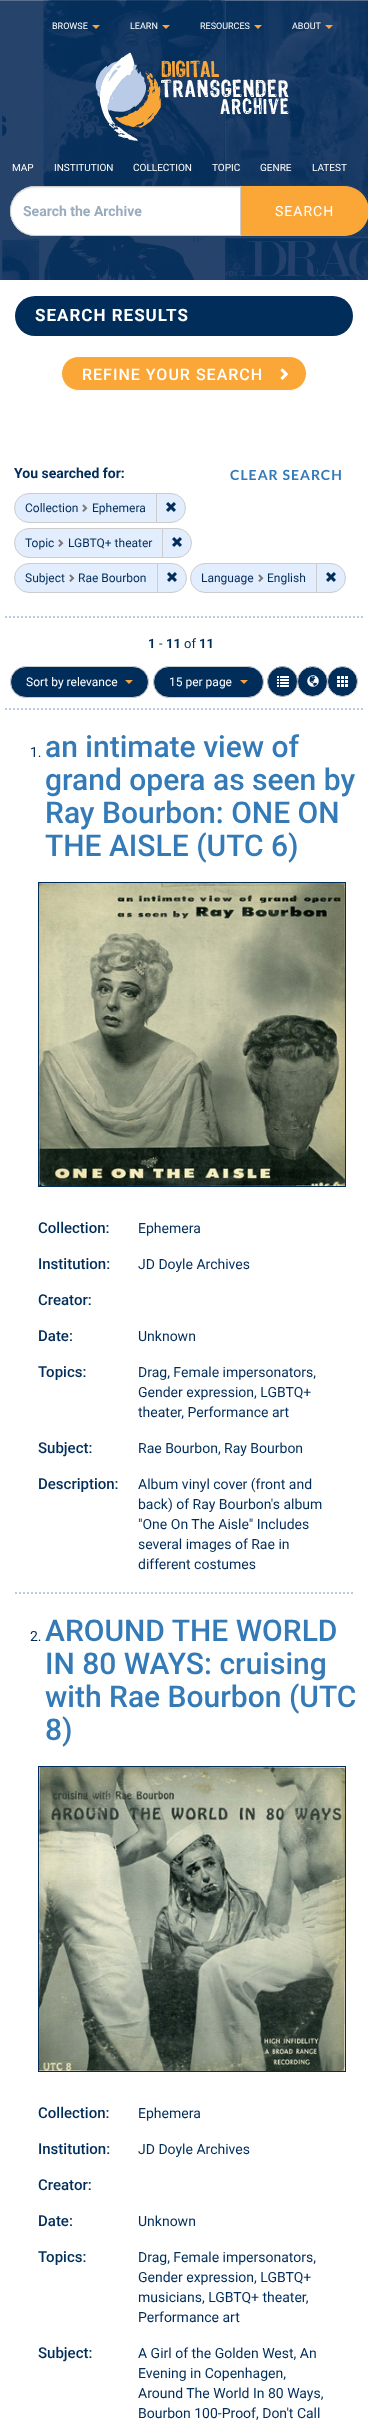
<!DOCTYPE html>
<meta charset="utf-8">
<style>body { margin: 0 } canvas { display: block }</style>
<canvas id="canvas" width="368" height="2426"></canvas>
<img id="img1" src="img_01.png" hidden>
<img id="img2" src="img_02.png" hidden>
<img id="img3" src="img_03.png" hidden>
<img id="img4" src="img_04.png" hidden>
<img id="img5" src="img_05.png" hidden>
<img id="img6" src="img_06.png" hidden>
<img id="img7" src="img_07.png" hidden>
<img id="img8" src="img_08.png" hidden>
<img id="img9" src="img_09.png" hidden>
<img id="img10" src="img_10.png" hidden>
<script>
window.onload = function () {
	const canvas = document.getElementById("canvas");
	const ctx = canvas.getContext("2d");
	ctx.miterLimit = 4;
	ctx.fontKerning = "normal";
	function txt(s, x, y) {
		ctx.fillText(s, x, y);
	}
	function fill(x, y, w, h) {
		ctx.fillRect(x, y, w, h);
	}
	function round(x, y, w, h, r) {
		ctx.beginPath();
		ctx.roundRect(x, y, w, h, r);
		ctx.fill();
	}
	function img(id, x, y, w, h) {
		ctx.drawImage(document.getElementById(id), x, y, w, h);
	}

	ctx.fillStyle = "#FFFFFF";
	fill(0, 0, 368, 2426);
	img("img1", 0, 0, 368, 280);
	ctx.fillStyle = "#FAA738";
	ctx.beginPath();
	ctx.moveTo(92, 25);
	ctx.lineTo(100, 25);
	ctx.lineTo(96, 29);
	ctx.closePath();
	ctx.fill();
	ctx.beginPath();
	ctx.moveTo(162, 25);
	ctx.lineTo(170, 25);
	ctx.lineTo(166, 29);
	ctx.closePath();
	ctx.fill();
	ctx.beginPath();
	ctx.moveTo(254, 25);
	ctx.lineTo(262, 25);
	ctx.lineTo(258, 29);
	ctx.closePath();
	ctx.fill();
	ctx.beginPath();
	ctx.moveTo(325, 25);
	ctx.lineTo(333, 25);
	ctx.lineTo(329, 29);
	ctx.closePath();
	ctx.fill();
	img("img2", 95, 52, 194, 89);
	ctx.beginPath();
	ctx.moveTo(240.5, 185.5);
	ctx.lineTo(344, 185.5);
	ctx.bezierCurveTo(358, 185.5, 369.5, 197, 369.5, 211);
	ctx.bezierCurveTo(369.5, 225, 358, 236.5, 344, 236.5);
	ctx.lineTo(240.5, 236.5);
	ctx.closePath();
	ctx.fill();
	ctx.strokeStyle = "#173D6F";
	ctx.stroke();
	ctx.fillStyle = "#FFFFFF";
	ctx.beginPath();
	ctx.roundRect(10, 186, 231, 50, [25, 0, 0, 25]);
	ctx.fill();
	ctx.fillStyle = "#ECECEC";
	ctx.beginPath();
	ctx.moveTo(35, 188);
	ctx.lineTo(240, 188);
	ctx.lineTo(240, 187);
	ctx.lineTo(35, 187);
	ctx.bezierCurveTo(22, 187, 11, 198, 11, 211);
	ctx.lineTo(11, 212);
	ctx.bezierCurveTo(11, 199, 22, 188, 35, 188);
	ctx.closePath();
	ctx.fill();
	ctx.beginPath();
	ctx.roundRect(10.5, 186.5, 230, 49, [24.5, 0, 0, 24.5]);
	ctx.strokeStyle = "#CCCCCC";
	ctx.stroke();
	ctx.fillStyle = "#002D59";
	round(15, 296, 338, 40, 20);
	ctx.fillStyle = "#FAA738";
	ctx.beginPath();
	ctx.roundRect(61.5, 356.5, 245, 34, 17);
	ctx.fill();
	ctx.strokeStyle = "#FFFFFF";
	ctx.stroke();
	img("img3", 280, 368, 9, 12);
	ctx.fillStyle = "#E2EDFE";
	ctx.beginPath();
	ctx.roundRect(14.5, 493.5, 142, 29, [14.5, 0, 0, 14.5]);
	ctx.fill();
	ctx.strokeStyle = "#CCCCCC";
	ctx.stroke();
	img("img4", 82, 504, 6, 8);
	ctx.beginPath();
	ctx.roundRect(156.5, 493.5, 29, 29, [0, 14.5, 14.5, 0]);
	ctx.fill();
	ctx.stroke();
	img("img5", 166, 502, 10, 10);
	ctx.beginPath();
	ctx.roundRect(14.5, 528.5, 148, 29, [14.5, 0, 0, 14.5]);
	ctx.fill();
	ctx.stroke();
	img("img4", 58, 539, 6, 8);
	ctx.beginPath();
	ctx.roundRect(162.5, 528.5, 29, 29, [0, 14.5, 14.5, 0]);
	ctx.fill();
	ctx.stroke();
	img("img5", 172, 537, 10, 10);
	ctx.beginPath();
	ctx.roundRect(14.5, 563.5, 143, 29, [14.5, 0, 0, 14.5]);
	ctx.fill();
	ctx.stroke();
	img("img4", 69, 574, 6, 8);
	ctx.beginPath();
	ctx.roundRect(157.5, 563.5, 29, 29, [0, 14.5, 14.5, 0]);
	ctx.fill();
	ctx.stroke();
	img("img5", 167, 572, 10, 10);
	ctx.beginPath();
	ctx.roundRect(190.5, 563.5, 126, 29, [14.5, 0, 0, 14.5]);
	ctx.fill();
	ctx.stroke();
	img("img4", 258, 574, 6, 8);
	ctx.beginPath();
	ctx.roundRect(316.5, 563.5, 29, 29, [0, 14.5, 14.5, 0]);
	ctx.fill();
	ctx.stroke();
	img("img5", 326, 572, 10, 10);
	ctx.beginPath();
	ctx.moveTo(5, 617);
	ctx.lineTo(363, 617);
	ctx.strokeStyle = "#BACBE7";
	ctx.lineWidth = 2;
	ctx.setLineDash([2, 2]);
	ctx.stroke();
	ctx.beginPath();
	ctx.moveTo(5, 709);
	ctx.lineTo(363, 709);
	ctx.stroke();
	ctx.fillStyle = "#002D59";
	ctx.beginPath();
	ctx.roundRect(10.5, 666.5, 138, 31, 15.5);
	ctx.fill();
	ctx.strokeStyle = "#CCCCCC";
	ctx.lineWidth = 1;
	ctx.setLineDash([]);
	ctx.stroke();
	ctx.fillStyle = "#F9A240";
	ctx.beginPath();
	ctx.moveTo(125, 680);
	ctx.lineTo(133, 680);
	ctx.lineTo(129, 684);
	ctx.closePath();
	ctx.fill();
	ctx.fillStyle = "#002D59";
	ctx.beginPath();
	ctx.roundRect(153.5, 666.5, 110, 31, 15.5);
	ctx.fill();
	ctx.stroke();
	ctx.fillStyle = "#F9A240";
	ctx.beginPath();
	ctx.moveTo(240, 680);
	ctx.lineTo(248, 680);
	ctx.lineTo(244, 684);
	ctx.closePath();
	ctx.fill();
	ctx.fillStyle = "#002D59";
	ctx.beginPath();
	ctx.arc(312.5, 681.5, 15, 0, Math.PI * 2);
	ctx.fill();
	ctx.stroke();
	ctx.beginPath();
	ctx.arc(282.5, 681.5, 15, 0, Math.PI * 2);
	ctx.fill();
	ctx.strokeStyle = "#ADADAD";
	ctx.stroke();
	img("img6", 277, 676, 12, 11);
	img("img7", 307, 675, 12, 12);
	ctx.beginPath();
	ctx.arc(342.5, 681.5, 15, 0, Math.PI * 2);
	ctx.fill();
	ctx.strokeStyle = "#CCCCCC";
	ctx.stroke();
	img("img8", 337, 676, 11, 11);
	ctx.beginPath();
	ctx.moveTo(15, 1593);
	ctx.lineTo(353, 1593);
	ctx.strokeStyle = "#BACBE7";
	ctx.lineWidth = 2;
	ctx.setLineDash([2, 2]);
	ctx.stroke();
	ctx.strokeStyle = "#002D59";
	ctx.lineWidth = 1;
	ctx.setLineDash([]);
	ctx.strokeRect(38.5, 882.5, 307, 304);
	img("img9", 39, 883, 306, 303);
	ctx.strokeRect(38.5, 1766.5, 307, 305);
	img("img10", 39, 1767, 306, 304);
	ctx.font = "9px Roboto";
	ctx.fillStyle = "#FFFFFF";
	txt("BROWSE", 52, 29);
	txt("LEARN", 130, 29);
	txt("RESOURCES", 200, 29);
	txt("ABOUT", 292, 29);
	ctx.font = "10px Roboto";
	txt("MAP", 12, 171);
	txt("INSTITUTION", 54, 171);
	txt("COLLECTION", 133, 171);
	txt("TOPIC", 212, 171);
	txt("GENRE", 260, 171);
	txt("LATEST", 312, 171);
	ctx.font = "bold 14px Roboto";
	ctx.fillStyle = "#99ABBD";
	txt("Search the Archive", 23, 216);
	ctx.letterSpacing = "1px";
	ctx.font = "14px Roboto";
	ctx.fillStyle = "#FFFFFF";
	txt("SEARCH", 275, 216);
	ctx.font = "bold 17px Roboto";
	txt("SEARCH RESULTS", 35, 321);
	ctx.font = "500 16px Roboto";
	txt("REFINE YOUR SEARCH", 82, 380);
	ctx.letterSpacing = "0px";
	ctx.font = "bold 14px Roboto";
	ctx.fillStyle = "#002D59";
	txt("You searched for:", 14, 478);
	ctx.letterSpacing = "1px";
	ctx.font = "bold 14px Lato";
	ctx.fillStyle = "#337AB7";
	txt("CLEAR SEARCH", 230, 480);
	ctx.letterSpacing = "0px";
	ctx.font = "12px Roboto";
	ctx.fillStyle = "#002D59";
	txt("Collection", 25, 512);
	txt("Ephemera", 92, 512);
	txt("Topic", 25, 547);
	txt("LGBTQ+ theater", 68, 547);
	txt("Subject", 25, 582);
	txt("Rae Bourbon", 78, 582);
	txt("Language", 201, 582);
	txt("English", 267, 582);
	ctx.font = "bold 13px Roboto";
	txt("1", 148, 648);
	ctx.font = "13px Roboto";
	txt("-", 159, 648);
	ctx.font = "bold 13px Roboto";
	txt("11", 166, 648);
	ctx.font = "13px Roboto";
	txt("of", 184, 648);
	ctx.font = "bold 13px Roboto";
	txt("11", 199, 648);
	ctx.font = "12px Roboto";
	ctx.fillStyle = "#FFFFFF";
	txt("Sort by relevance", 26, 686);
	txt("15 per page", 169, 686);
	ctx.font = "14px Roboto";
	ctx.fillStyle = "#002D59";
	txt("1.", 30, 757);
	ctx.font = "500 30px Roboto";
	ctx.fillStyle = "#337AB7";
	txt("an intimate view of", 45, 757);
	txt("grand opera as seen by", 45, 790);
	txt("Ray Bourbon: ONE ON", 45, 823);
	txt("THE AISLE (UTC 6)", 45, 856);
	ctx.font = "500 15px Roboto";
	ctx.fillStyle = "#002D59";
	txt("Collection:", 38, 1233);
	ctx.font = "14px Roboto";
	txt("Ephemera", 138, 1233);
	ctx.font = "500 15px Roboto";
	txt("Institution:", 38, 1269);
	ctx.font = "14px Roboto";
	txt("JD Doyle Archives", 138, 1269);
	ctx.font = "500 15px Roboto";
	txt("Creator:", 38, 1305);
	txt("Date:", 38, 1341);
	ctx.font = "14px Roboto";
	txt("Unknown", 138, 1341);
	ctx.font = "500 15px Roboto";
	txt("Topics:", 38, 1377);
	ctx.font = "14px Roboto";
	txt("Drag, Female impersonators,", 138, 1377);
	txt("Gender expression, LGBTQ+", 138, 1397);
	txt("theater, Performance art", 138, 1417);
	ctx.font = "500 15px Roboto";
	txt("Subject:", 38, 1453);
	ctx.font = "14px Roboto";
	txt("Rae Bourbon, Ray Bourbon", 138, 1453);
	ctx.font = "500 15px Roboto";
	txt("Description:", 38, 1489);
	ctx.font = "14px Roboto";
	txt("Album vinyl cover (front and", 138, 1489);
	txt("back) of Ray Bourbon's album", 138, 1509);
	txt("\"One On The Aisle\" Includes", 138, 1529);
	txt("several images of Rae in", 138, 1549);
	txt("different costumes", 138, 1569);
	txt("2.", 30, 1641);
	ctx.font = "500 30px Roboto";
	ctx.fillStyle = "#337AB7";
	txt("AROUND THE WORLD", 45, 1641);
	txt("IN 80 WAYS: cruising", 45, 1674);
	txt("with Rae Bourbon (UTC", 45, 1707);
	txt("8)", 45, 1740);
	ctx.font = "500 15px Roboto";
	ctx.fillStyle = "#002D59";
	txt("Collection:", 38, 2118);
	ctx.font = "14px Roboto";
	txt("Ephemera", 138, 2118);
	ctx.font = "500 15px Roboto";
	txt("Institution:", 38, 2154);
	ctx.font = "14px Roboto";
	txt("JD Doyle Archives", 138, 2154);
	ctx.font = "500 15px Roboto";
	txt("Creator:", 38, 2190);
	txt("Date:", 38, 2226);
	ctx.font = "14px Roboto";
	txt("Unknown", 138, 2226);
	ctx.font = "500 15px Roboto";
	txt("Topics:", 38, 2262);
	ctx.font = "14px Roboto";
	txt("Drag, Female impersonators,", 138, 2262);
	txt("Gender expression, LGBTQ+", 138, 2282);
	txt("musicians, LGBTQ+ theater,", 138, 2302);
	txt("Performance art", 138, 2322);
	ctx.font = "500 15px Roboto";
	txt("Subject:", 38, 2358);
	ctx.font = "14px Roboto";
	txt("A Girl of the Golden West, An", 138, 2358);
	txt("Evening in Copenhagen,", 138, 2378);
	txt("Around The World In 80 Ways,", 138, 2398);
	txt("Bourbon 100-Proof, Don't Call", 138, 2418);
};
</script>
